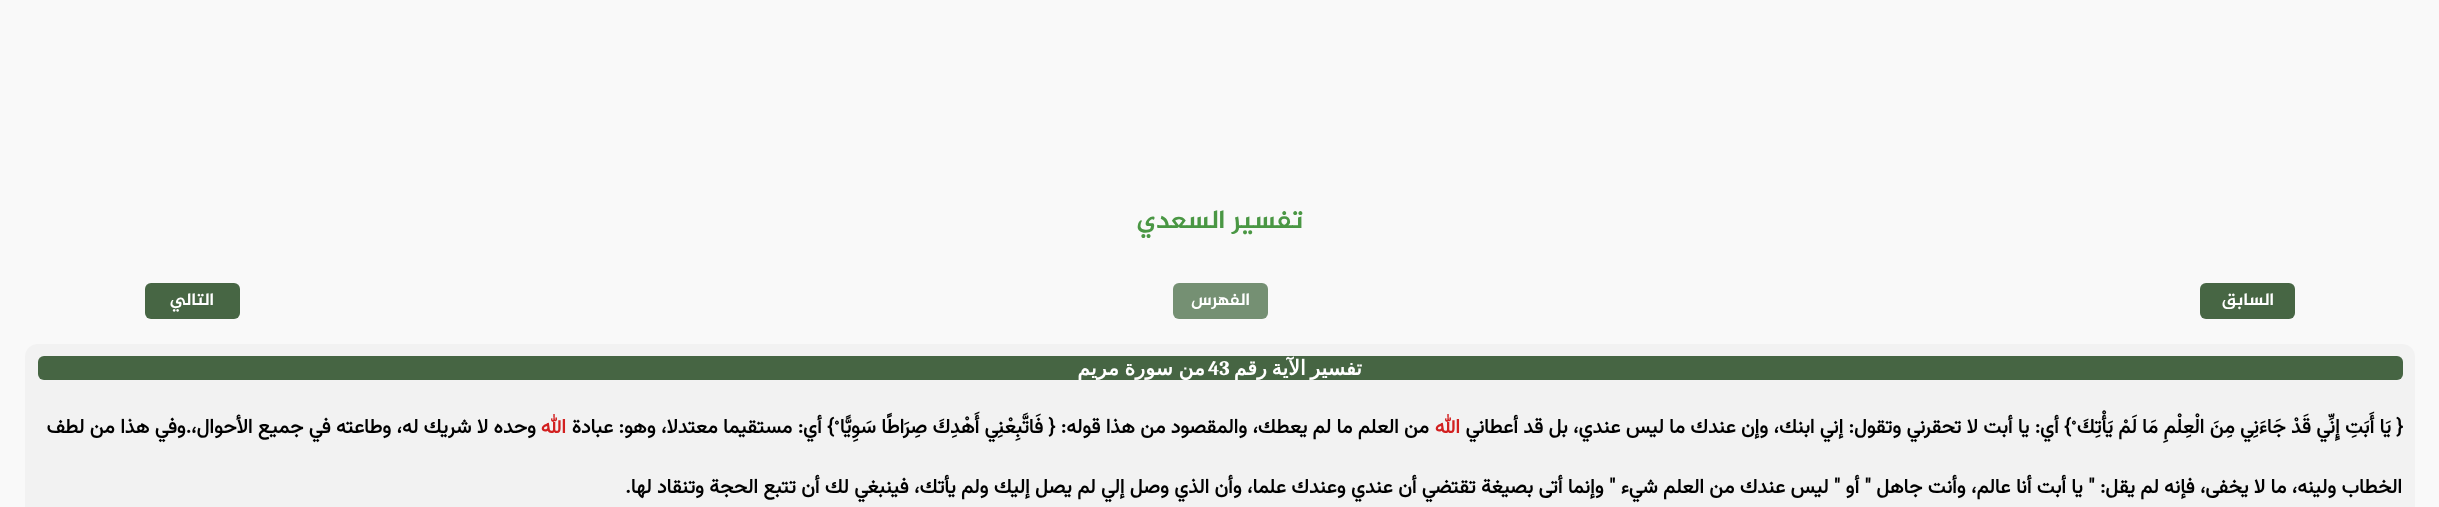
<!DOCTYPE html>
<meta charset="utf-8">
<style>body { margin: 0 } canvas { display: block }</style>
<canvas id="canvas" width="2439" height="507"></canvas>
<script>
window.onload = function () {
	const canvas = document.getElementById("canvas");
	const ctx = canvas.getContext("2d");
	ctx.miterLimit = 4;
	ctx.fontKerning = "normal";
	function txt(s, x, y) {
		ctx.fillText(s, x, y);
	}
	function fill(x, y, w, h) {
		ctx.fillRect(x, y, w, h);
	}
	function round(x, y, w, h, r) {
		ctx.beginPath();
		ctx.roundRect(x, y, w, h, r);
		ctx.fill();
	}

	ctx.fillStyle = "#F9F9F9";
	fill(0, 0, 2439, 507);
	ctx.fillStyle = "#476644";
	round(2200, 283, 95, 36, 6);
	ctx.fillStyle = "#759073";
	round(1173, 283, 95, 36, 6);
	ctx.fillStyle = "#476644";
	round(145, 283, 95, 36, 6);
	ctx.fillStyle = "#F2F2F2";
	round(25, 344, 2390, 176, 13);
	ctx.fillStyle = "#466543";
	round(38, 356, 2365, 24, 6);
	ctx.direction = "rtl";
	ctx.font = "bold 26.25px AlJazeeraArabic";
	ctx.fillStyle = "#4A9744";
	txt("تفسير السعدي", 1303, 228);
	ctx.font = "bold 17.5px AlJazeeraArabic";
	ctx.fillStyle = "#FFFFFF";
	txt("السابق", 2274, 305);
	txt("الفهرس", 1250, 305);
	txt("التالي", 214, 305);
	ctx.wordSpacing = "-2px";
	ctx.font = "bold 20.5px DejaVu Sans";
	txt("تفسير الآية رقم", 1362, 375);
	ctx.wordSpacing = "0px";
	ctx.direction = "ltr";
	ctx.font = "bold 20.5px Caladea";
	txt("43", 1208, 375);
	ctx.wordSpacing = "-1px";
	ctx.direction = "rtl";
	ctx.font = "bold 20.5px DejaVu Sans";
	txt("من سورة مريم", 1205, 375);
	ctx.wordSpacing = "0px";
	ctx.font = "bold 20px Vazirmatn";
	ctx.fillStyle = "#000000";
	txt("{ يَا أَبَتِ إِنِّي قَدْ جَاءَنِي مِنَ الْعِلْمِ مَا لَمْ يَأْتِكَ ْ} أي: يا أبت لا تحقرني وتقول: إني ابنك، وإن عندك ما ليس عندي، بل قد أعطاني", 2403, 433);
	ctx.fillStyle = "#D22020";
	txt("الله", 1460, 433);
	ctx.fillStyle = "#000000";
	txt("من العلم ما لم يعطك، والمقصود من هذا قوله: { فَاتَّبِعْنِي أَهْدِكَ صِرَاطًا سَوِيًّا ْ} أي: مستقيما معتدلا، وهو: عبادة", 1429, 433);
	ctx.fillStyle = "#D22020";
	txt("الله", 566, 433);
	ctx.fillStyle = "#000000";
	txt("وحده لا شريك له، وطاعته في جميع الأحوال،.وفي هذا من لطف", 536, 433);
	txt("الخطاب ولينه، ما لا يخفى، فإنه لم يقل: \" يا أبت أنا عالم، وأنت جاهل \" أو \" ليس عندك من العلم شيء \" وإنما أتى بصيغة تقتضي أن عندي وعندك علما، وأن الذي وصل إلي لم يصل إليك ولم يأتك، فينبغي لك أن تتبع الحجة وتنقاد لها.", 2402, 493);
};
</script>
